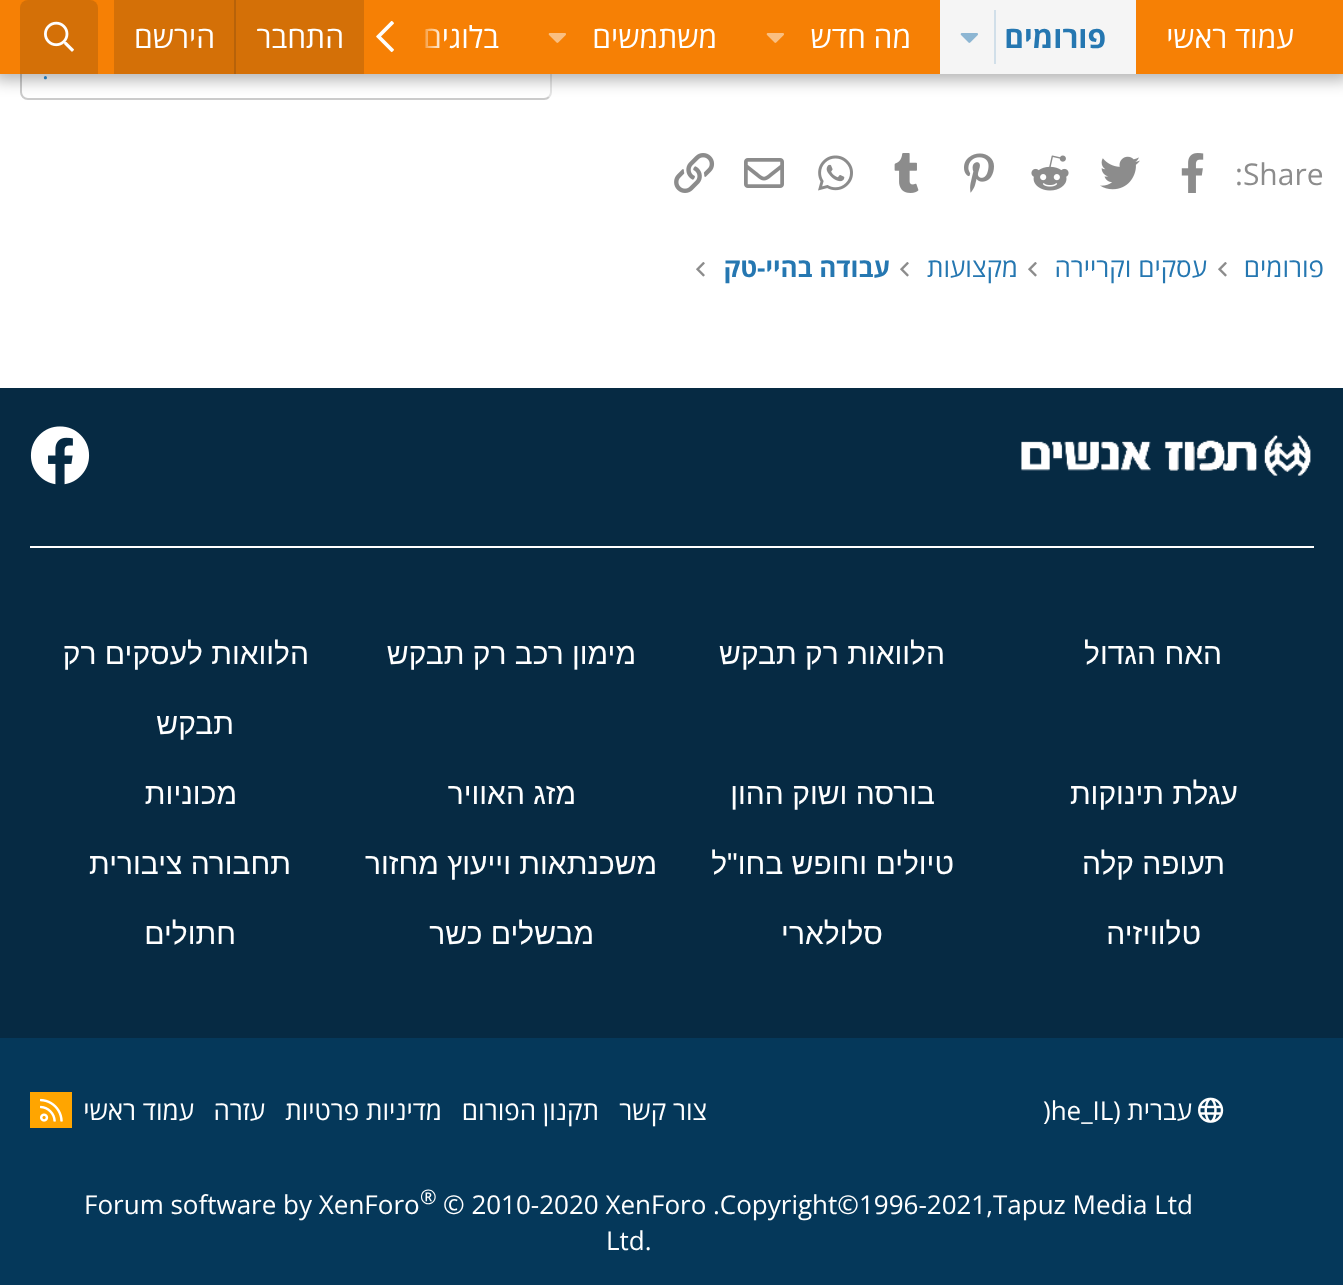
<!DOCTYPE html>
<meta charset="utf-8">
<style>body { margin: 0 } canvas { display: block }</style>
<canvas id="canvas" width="1343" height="1285"></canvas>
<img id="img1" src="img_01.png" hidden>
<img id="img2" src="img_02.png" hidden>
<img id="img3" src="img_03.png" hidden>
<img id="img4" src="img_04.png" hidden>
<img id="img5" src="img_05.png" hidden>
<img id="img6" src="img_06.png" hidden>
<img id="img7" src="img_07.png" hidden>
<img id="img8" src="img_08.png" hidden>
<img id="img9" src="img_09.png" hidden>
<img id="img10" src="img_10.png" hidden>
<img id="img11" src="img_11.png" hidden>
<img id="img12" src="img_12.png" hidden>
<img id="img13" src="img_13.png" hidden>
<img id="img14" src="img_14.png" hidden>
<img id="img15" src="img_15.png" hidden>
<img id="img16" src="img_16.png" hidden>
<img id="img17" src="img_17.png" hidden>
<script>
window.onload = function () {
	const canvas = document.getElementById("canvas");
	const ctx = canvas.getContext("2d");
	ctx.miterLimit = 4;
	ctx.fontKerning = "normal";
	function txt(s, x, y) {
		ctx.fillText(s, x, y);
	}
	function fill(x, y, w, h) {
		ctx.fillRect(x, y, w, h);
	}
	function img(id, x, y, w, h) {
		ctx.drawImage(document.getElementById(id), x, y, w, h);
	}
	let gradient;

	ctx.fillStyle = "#FFFFFF";
	fill(0, 0, 1343, 1285);
	ctx.beginPath();
	ctx.moveTo(23, 41);
	ctx.bezierCurveTo(24.5, 39.5, 26, 39, 28, 39);
	ctx.lineTo(544, 39);
	ctx.bezierCurveTo(546, 39, 547.5, 39.5, 549, 41);
	ctx.bezierCurveTo(550.5, 42.5, 551, 44, 551, 46);
	ctx.lineTo(551, 92);
	ctx.bezierCurveTo(551, 94, 550.5, 95.5, 549, 97);
	ctx.strokeStyle = "#E5E5E5";
	ctx.lineWidth = 2;
	ctx.stroke();
	ctx.beginPath();
	ctx.moveTo(549, 97);
	ctx.bezierCurveTo(547.5, 98.5, 546, 99, 544, 99);
	ctx.lineTo(28, 99);
	ctx.bezierCurveTo(26, 99, 24.5, 98.5, 23, 97);
	ctx.bezierCurveTo(21.5, 95.5, 21, 94, 21, 92);
	ctx.lineTo(21, 46);
	ctx.bezierCurveTo(21, 44, 21.5, 42.5, 23, 41);
	ctx.strokeStyle = "#CBCBCB";
	ctx.stroke();
	ctx.fillStyle = "rgba(0, 0, 0, 0.3)";
	ctx.filter = "blur(8px)";
	ctx.beginPath();
	ctx.rect(-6, -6, 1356, 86);
	ctx.fill();
	ctx.filter = "none";
	ctx.fillStyle = "#F68005";
	fill(0, 0, 1343, 74);
	ctx.fillStyle = "#F5F5F5";
	fill(940, 0, 196, 74);
	ctx.fillStyle = "#D1DFE9";
	fill(994, 10, 2, 54);
	img("img1", 960, 33, 18, 10);
	img("img2", 766, 33, 18, 10);
	img("img2", 548, 33, 18, 10);
	img("img3", 376, 20, 18, 33);
	ctx.fillStyle = "#D47007";
	fill(114, 0, 250, 74);
	ctx.fillStyle = "#B76209";
	fill(234, 0, 2, 74);
	ctx.fillStyle = "#D47007";
	ctx.beginPath();
	ctx.roundRect(20, 0, 78, 74, [8, 8, 0, 0]);
	ctx.fill();
	img("img4", 44, 21, 30, 31);
	img("img5", 1181, 153, 23, 40);
	img("img6", 1100, 156, 40, 34);
	img("img7", 1031, 155, 38, 36);
	img("img8", 964, 153, 30, 40);
	img("img9", 894, 153, 25, 40);
	img("img10", 818, 155, 35, 36);
	img("img11", 744, 158, 40, 30);
	img("img12", 674, 153, 41, 40);
	img("img13", 1218, 262, 9, 15);
	img("img13", 1028, 262, 9, 15);
	img("img13", 900, 262, 9, 15);
	img("img13", 696, 262, 9, 15);
	ctx.fillStyle = "#062A43";
	fill(0, 388, 1343, 650);
	ctx.fillStyle = "#FFFFFF";
	fill(30, 546, 1284, 2);
	img("img14", 1021, 435, 290, 41);
	img("img15", 30, 426, 60, 59);
	ctx.fillStyle = "#05385A";
	fill(0, 1038, 1343, 247);
	img("img16", 1198, 1097, 26, 26);
	ctx.fillStyle = "#FFA500";
	fill(30, 1092, 42, 36);
	img("img17", 40, 1098, 23, 24);
	ctx.direction = "rtl";
	ctx.font = "30px Open Sans";
	ctx.fillStyle = "#FFFFFF";
	txt("עמוד ראשי", 1294, 48);
	ctx.font = "bold 30px Open Sans";
	ctx.fillStyle = "#2577B1";
	txt("פורומים", 1106, 48);
	ctx.font = "30px Open Sans";
	ctx.fillStyle = "#FFFFFF";
	txt("מה חדש", 911, 48);
	txt("משתמשים", 717, 48);
	txt("בלוגים", 499, 48);
	gradient = ctx.createLinearGradient(444, 37, 364, 37);
	gradient.addColorStop(0, "rgba(246, 128, 5, 0)");
	gradient.addColorStop(0.33, "#F68005");
	ctx.fillStyle = gradient;
	fill(425, 28, 15, 20);
	ctx.fillStyle = "#FFFFFF";
	txt("התחבר", 344, 48);
	txt("הירשם", 215, 48);
	ctx.direction = "ltr";
	ctx.font = "26px Open Sans";
	ctx.fillStyle = "#2577B1";
	txt(".", 42, 79);
	ctx.font = "30px Open Sans";
	ctx.fillStyle = "#8C8C8C";
	txt(":Share", 1235, 185);
	ctx.direction = "rtl";
	ctx.font = "26px Open Sans";
	ctx.fillStyle = "#2577B1";
	txt("פורומים", 1324, 277);
	txt("עסקים וקריירה", 1207, 277);
	txt("מקצועות", 1018, 277);
	ctx.font = "bold 26px Open Sans";
	txt("עבודה בהיי-טק", 890, 277);
	ctx.font = "30px Liberation Sans";
	ctx.fillStyle = "#FFFFFF";
	txt("האח הגדול", 1222, 664);
	txt("הלוואות רק תבקש", 945, 664);
	txt("מימון רכב רק תבקש", 636, 664);
	txt("הלוואות לעסקים רק", 309, 664);
	txt("תבקש", 234, 734);
	txt("עגלת תינוקות", 1238, 804);
	txt("בורסה ושוק ההון", 935, 804);
	txt("מזג האוויר", 576, 804);
	txt("מכוניות", 237, 804);
	txt("תעופה קלה", 1225, 874);
	txt("טיולים וחופש בחו\"ל", 954, 874);
	txt("משכנתאות וייעוץ מחזור", 657, 874);
	txt("תחבורה ציבורית", 291, 874);
	txt("טלוויזיה", 1201, 944);
	txt("סלולארי", 883, 944);
	txt("מבשלים כשר", 594, 944);
	txt("חתולים", 236, 944);
	ctx.font = "26px Open Sans";
	txt("עברית (", 1192, 1120);
	ctx.direction = "ltr";
	txt(")he_IL", 1043, 1120);
	ctx.direction = "rtl";
	txt("צור קשר", 707, 1120);
	txt("תקנון הפורום", 599, 1120);
	txt("מדיניות פרטיות", 442, 1120);
	txt("עזרה", 265, 1120);
	txt("עמוד ראשי", 194, 1120);
	ctx.direction = "ltr";
	txt(".Copyright©1996-2021,Tapuz Media Ltd", 713, 1214);
	txt("© 2010-2020 XenForo", 443, 1214);
	ctx.font = "20px Open Sans";
	txt("®", 420, 1204);
	ctx.font = "26px Open Sans";
	txt("Forum software by XenForo", 84, 1214);
	txt("Ltd.", 606, 1250);
};
</script>
